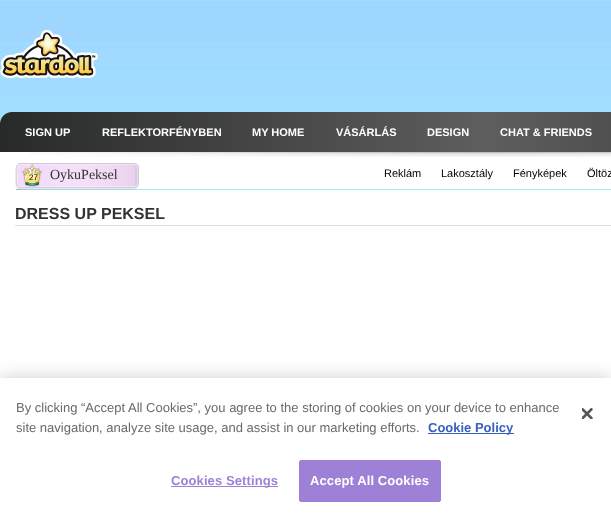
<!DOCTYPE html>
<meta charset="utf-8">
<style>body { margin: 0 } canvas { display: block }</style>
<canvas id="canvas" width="611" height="518"></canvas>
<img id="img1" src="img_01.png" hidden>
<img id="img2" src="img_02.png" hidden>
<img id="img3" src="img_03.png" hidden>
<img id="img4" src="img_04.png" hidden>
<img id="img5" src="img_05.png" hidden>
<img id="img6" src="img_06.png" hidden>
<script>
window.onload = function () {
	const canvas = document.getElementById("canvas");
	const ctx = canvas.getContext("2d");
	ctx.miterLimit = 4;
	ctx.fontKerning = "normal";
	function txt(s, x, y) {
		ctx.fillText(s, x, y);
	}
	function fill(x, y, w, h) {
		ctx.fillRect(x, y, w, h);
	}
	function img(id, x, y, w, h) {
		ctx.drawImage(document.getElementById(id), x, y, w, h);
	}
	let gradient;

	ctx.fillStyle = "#FFFFFF";
	fill(0, 0, 611, 518);
	img("img1", 0, 0, 611, 190);
	img("img2", 0, 30, 98, 48);
	ctx.fillStyle = "rgba(0, 0, 0, 0.3)";
	ctx.filter = "blur(8px)";
	ctx.beginPath();
	ctx.rect(-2, 160, 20, 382);
	ctx.fill();
	ctx.filter = "none";
	gradient = ctx.createLinearGradient(0, 132, 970, 132);
	gradient.addColorStop(0, "#282929");
	gradient.addColorStop(0.5, "#5E5E5E");
	gradient.addColorStop(1, "#282929");
	ctx.fillStyle = gradient;
	ctx.beginPath();
	ctx.moveTo(12, 112);
	ctx.lineTo(611, 112);
	ctx.bezierCurveTo(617.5, 112, 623, 117.5, 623, 124);
	ctx.lineTo(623, 152);
	ctx.lineTo(0, 152);
	ctx.lineTo(0, 124);
	ctx.bezierCurveTo(0, 117.5, 5.5, 112, 12, 112);
	ctx.closePath();
	ctx.fill();
	ctx.fillStyle = "#FFFFFF";
	fill(0, 152, 611, 37);
	img("img3", 30, 152, 581, 5);
	img("img4", 135, 163, 4, 26);
	fill(0, 189, 16, 1);
	img("img5", 15, 163, 120, 27);
	fill(0, 190, 33, 188);
	ctx.fillStyle = "#DDDDDD";
	fill(15, 225, 596, 1);
	ctx.fillStyle = "rgba(0, 0, 0, 0.2)";
	ctx.filter = "blur(9px)";
	ctx.beginPath();
	ctx.rect(0, 378, 611, 140);
	ctx.fill();
	ctx.filter = "none";
	ctx.fillStyle = "#FFFFFF";
	fill(0, 378, 611, 140);
	ctx.fillStyle = "#3860BE";
	fill(428, 433, 86, 1);
	img("img6", 582, 408, 11, 11);
	ctx.fillStyle = "#9E80D6";
	fill(171, 486, 107, 1);
	ctx.beginPath();
	ctx.roundRect(299.5, 460.5, 141, 41, 1.5);
	ctx.fill();
	ctx.strokeStyle = "#9E80D6";
	ctx.stroke();
	ctx.font = "bold 11px Liberation Sans";
	ctx.fillStyle = "#FFFFFF";
	txt("SIGN UP", 25, 136);
	txt("REFLEKTORFÉNYBEN", 102, 136);
	txt("MY HOME", 252, 136);
	txt("VÁSÁRLÁS", 336, 136);
	txt("DESIGN", 427, 136);
	txt("CHAT & FRIENDS", 500, 136);
	ctx.font = "8px Liberation Sans";
	ctx.fillStyle = "#000000";
	txt("27", 29, 180);
	ctx.font = "14px Liberation Serif";
	ctx.fillStyle = "#333333";
	txt("OykuPeksel", 50, 179);
	ctx.font = "11px Liberation Sans";
	ctx.fillStyle = "#000000";
	txt("Reklám", 384, 177);
	txt("Lakosztály", 441, 177);
	txt("Fényképek", 513, 177);
	txt("Öltöz", 587, 177);
	ctx.font = "bold 16px Liberation Sans";
	ctx.fillStyle = "#333333";
	txt("DRESS UP PEKSEL", 15, 219);
	ctx.font = "13px Liberation Sans";
	ctx.fillStyle = "#696969";
	txt("By clicking “Accept All Cookies”, you agree to the storing of cookies on your device to enhance", 16, 412);
	txt("site navigation, analyze site usage, and assist in our marketing efforts.", 16, 432);
	ctx.font = "bold 13px Liberation Sans";
	ctx.fillStyle = "#3860BE";
	txt("Cookie Policy", 428, 432);
	ctx.letterSpacing = "0.1px";
	ctx.fillStyle = "#9E80D6";
	txt("Cookies Settings", 171, 485);
	ctx.fillStyle = "#FFFFFF";
	txt("Accept All Cookies", 310, 485);
};
</script>
